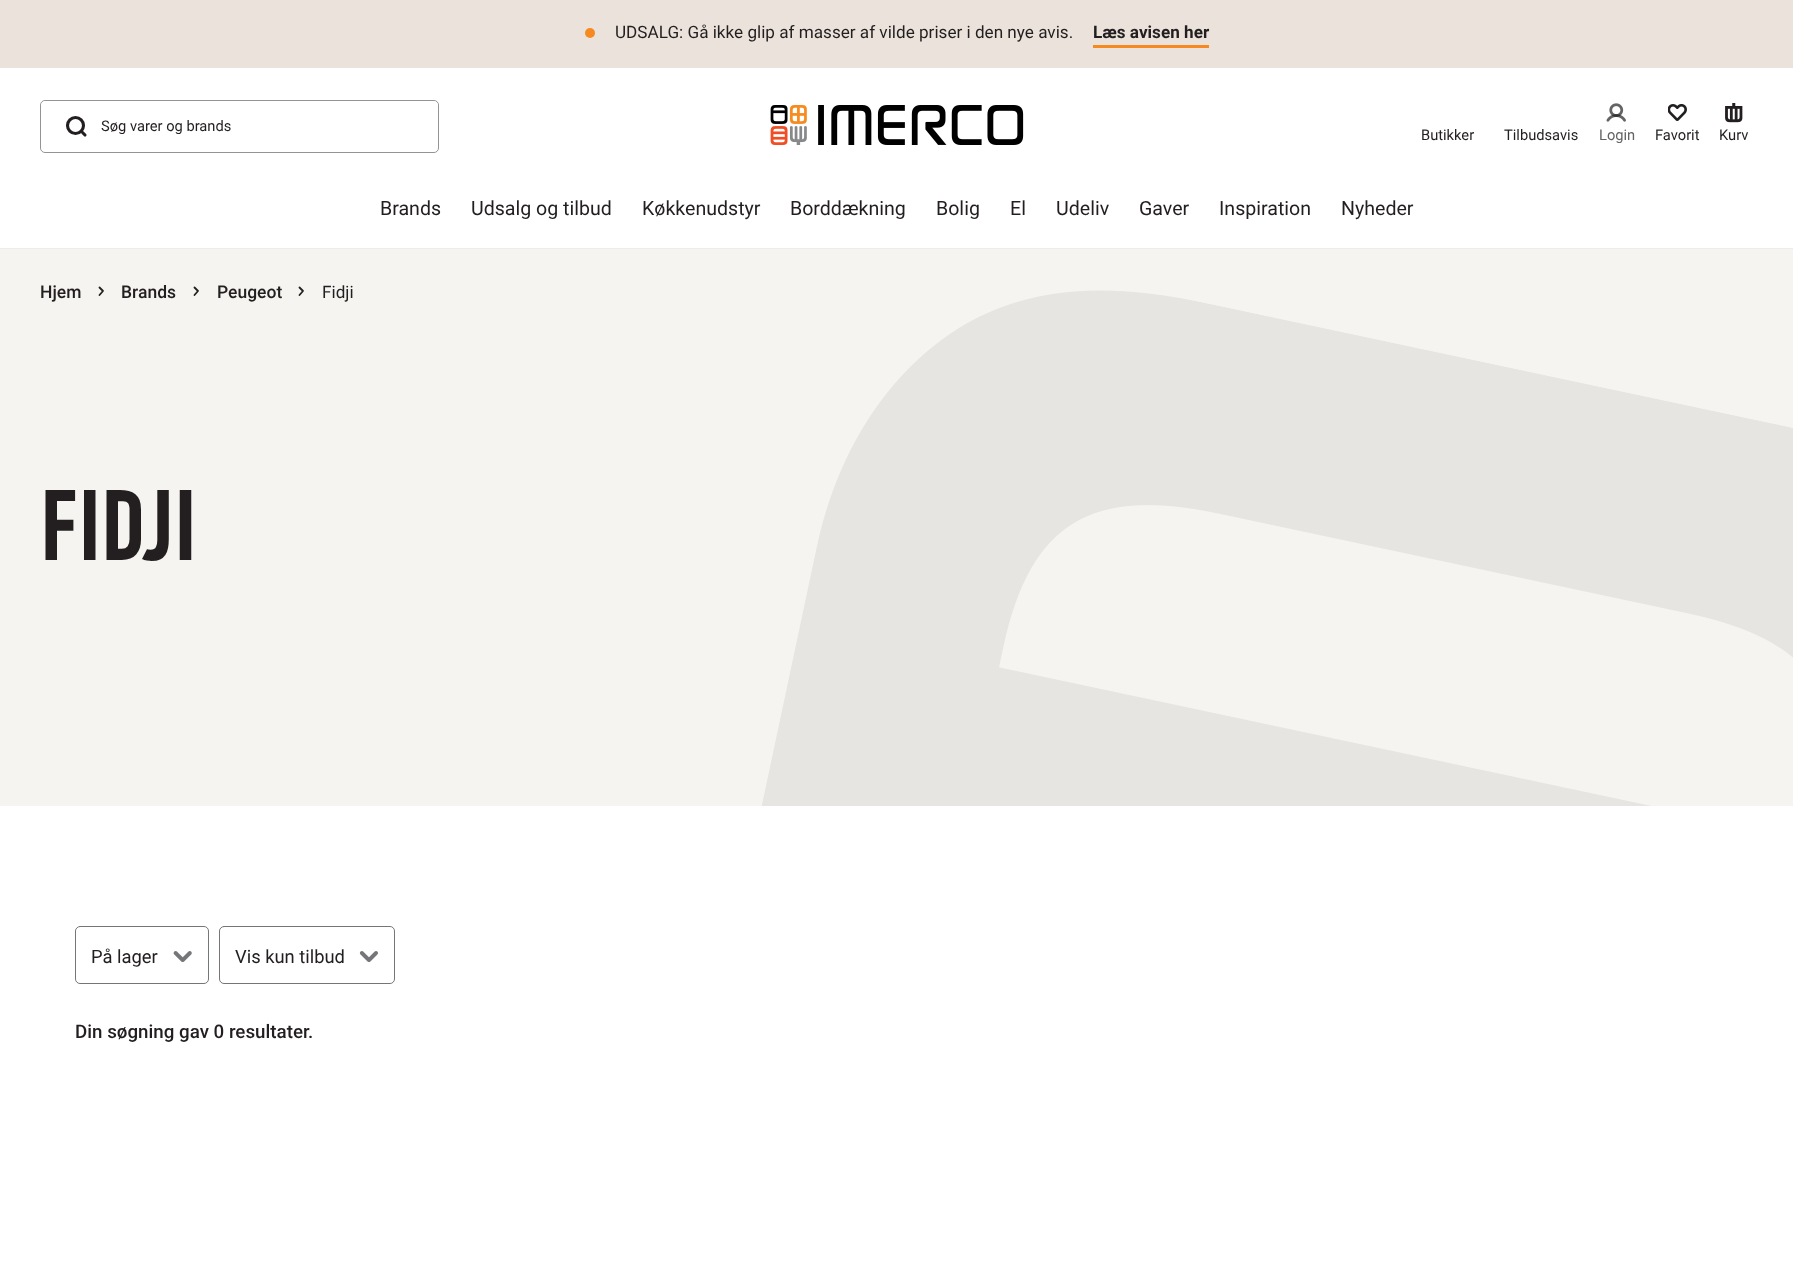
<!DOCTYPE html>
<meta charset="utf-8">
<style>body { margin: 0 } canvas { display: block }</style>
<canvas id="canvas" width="1793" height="1278"></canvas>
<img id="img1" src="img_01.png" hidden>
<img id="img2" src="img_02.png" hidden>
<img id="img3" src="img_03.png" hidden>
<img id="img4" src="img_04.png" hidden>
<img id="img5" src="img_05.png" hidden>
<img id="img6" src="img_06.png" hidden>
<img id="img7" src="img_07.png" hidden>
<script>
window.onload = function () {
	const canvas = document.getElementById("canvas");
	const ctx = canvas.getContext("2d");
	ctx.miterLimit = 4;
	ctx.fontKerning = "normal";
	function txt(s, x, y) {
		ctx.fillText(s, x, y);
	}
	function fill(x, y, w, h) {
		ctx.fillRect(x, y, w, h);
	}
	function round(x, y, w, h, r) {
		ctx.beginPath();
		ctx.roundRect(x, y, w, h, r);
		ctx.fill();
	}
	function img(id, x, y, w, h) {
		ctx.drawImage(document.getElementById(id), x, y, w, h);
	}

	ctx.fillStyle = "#FFFFFF";
	fill(0, 0, 1793, 1278);
	ctx.fillStyle = "#ECECEC";
	fill(0, 248, 1793, 1);
	ctx.fillStyle = "#EBE3DB";
	fill(0, 0, 1793, 68);
	ctx.fillStyle = "#F68A20";
	ctx.beginPath();
	ctx.arc(590, 33, 5, 0, Math.PI * 2);
	ctx.fill();
	fill(1093, 45, 116, 3);
	ctx.beginPath();
	ctx.roundRect(40.5, 100.5, 398, 52, 4.5);
	ctx.strokeStyle = "#949494";
	ctx.stroke();
	ctx.fillStyle = "#FFFFFF";
	round(41, 101, 397, 50, 5);
	ctx.beginPath();
	ctx.arc(75.5, 125.5, 8, 0, Math.PI * 2);
	ctx.strokeStyle = "#231F20";
	ctx.lineWidth = 3.1;
	ctx.stroke();
	ctx.beginPath();
	ctx.moveTo(82.5, 132.5);
	ctx.lineTo(85, 135);
	ctx.lineCap = "round";
	ctx.lineJoin = "round";
	ctx.stroke();
	img("img1", 770, 105, 254, 40);
	img("img2", 1606, 103, 20, 19);
	img("img3", 1668, 103, 19, 18);
	img("img4", 1725, 103, 18, 20);
	ctx.fillStyle = "#F6F4F1";
	fill(0, 249, 1793, 557);
	ctx.beginPath();
	ctx.moveTo(99.5, 287.5);
	ctx.lineTo(103, 291);
	ctx.lineTo(99.5, 295);
	ctx.lineWidth = 1.8;
	ctx.stroke();
	ctx.beginPath();
	ctx.moveTo(194.5, 287.5);
	ctx.lineTo(198, 291);
	ctx.lineTo(194.5, 295);
	ctx.stroke();
	ctx.beginPath();
	ctx.moveTo(299.5, 287.5);
	ctx.lineTo(303, 291);
	ctx.lineTo(299.5, 295);
	ctx.stroke();
	img("img5", 762, 290, 1031, 516);
	ctx.beginPath();
	ctx.roundRect(75.5, 926.5, 133, 57, 4.5);
	ctx.strokeStyle = "#757679";
	ctx.lineWidth = 1;
	ctx.lineJoin = "miter";
	ctx.stroke();
	img("img6", 173, 951, 19, 12);
	ctx.beginPath();
	ctx.roundRect(219.5, 926.5, 175, 57, 4.5);
	ctx.stroke();
	img("img7", 359, 951, 19, 11);
	ctx.font = "17.5px Roboto";
	ctx.fillStyle = "#231F20";
	txt("UDSALG: Gå ikke glip af masser af vilde priser i den nye avis.", 615, 38);
	ctx.font = "bold 17.5px Roboto";
	txt("Læs avisen her", 1093, 38);
	ctx.font = "15px Roboto";
	txt("Søg varer og brands", 101, 131);
	txt("Butikker", 1421, 140);
	txt("Tilbudsavis", 1504, 140);
	ctx.fillStyle = "#656263";
	txt("Login", 1599, 140);
	ctx.fillStyle = "#231F20";
	txt("Favorit", 1655, 140);
	txt("Kurv", 1719, 140);
	ctx.font = "20px Roboto";
	txt("Brands", 380, 215);
	txt("Udsalg og tilbud", 471, 215);
	txt("Køkkenudstyr", 642, 215);
	txt("Borddækning", 790, 215);
	txt("Bolig", 936, 215);
	txt("El", 1010, 215);
	txt("Udeliv", 1056, 215);
	txt("Gaver", 1139, 215);
	txt("Inspiration", 1219, 215);
	txt("Nyheder", 1341, 215);
	ctx.font = "500 17.5px Roboto";
	txt("Hjem", 40, 298);
	txt("Brands", 121, 298);
	txt("Peugeot", 217, 298);
	ctx.font = "17.5px Roboto";
	txt("Fidji", 322, 298);
	ctx.font = "600 100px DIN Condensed";
	txt("FIDJI", 40, 560);
	ctx.font = "18.75px Roboto";
	txt("På lager", 91, 963);
	txt("Vis kun tilbud", 235, 963);
	ctx.font = "500 18.75px Roboto";
	txt("Din søgning gav 0 resultater.", 75, 1038);
};
</script>
